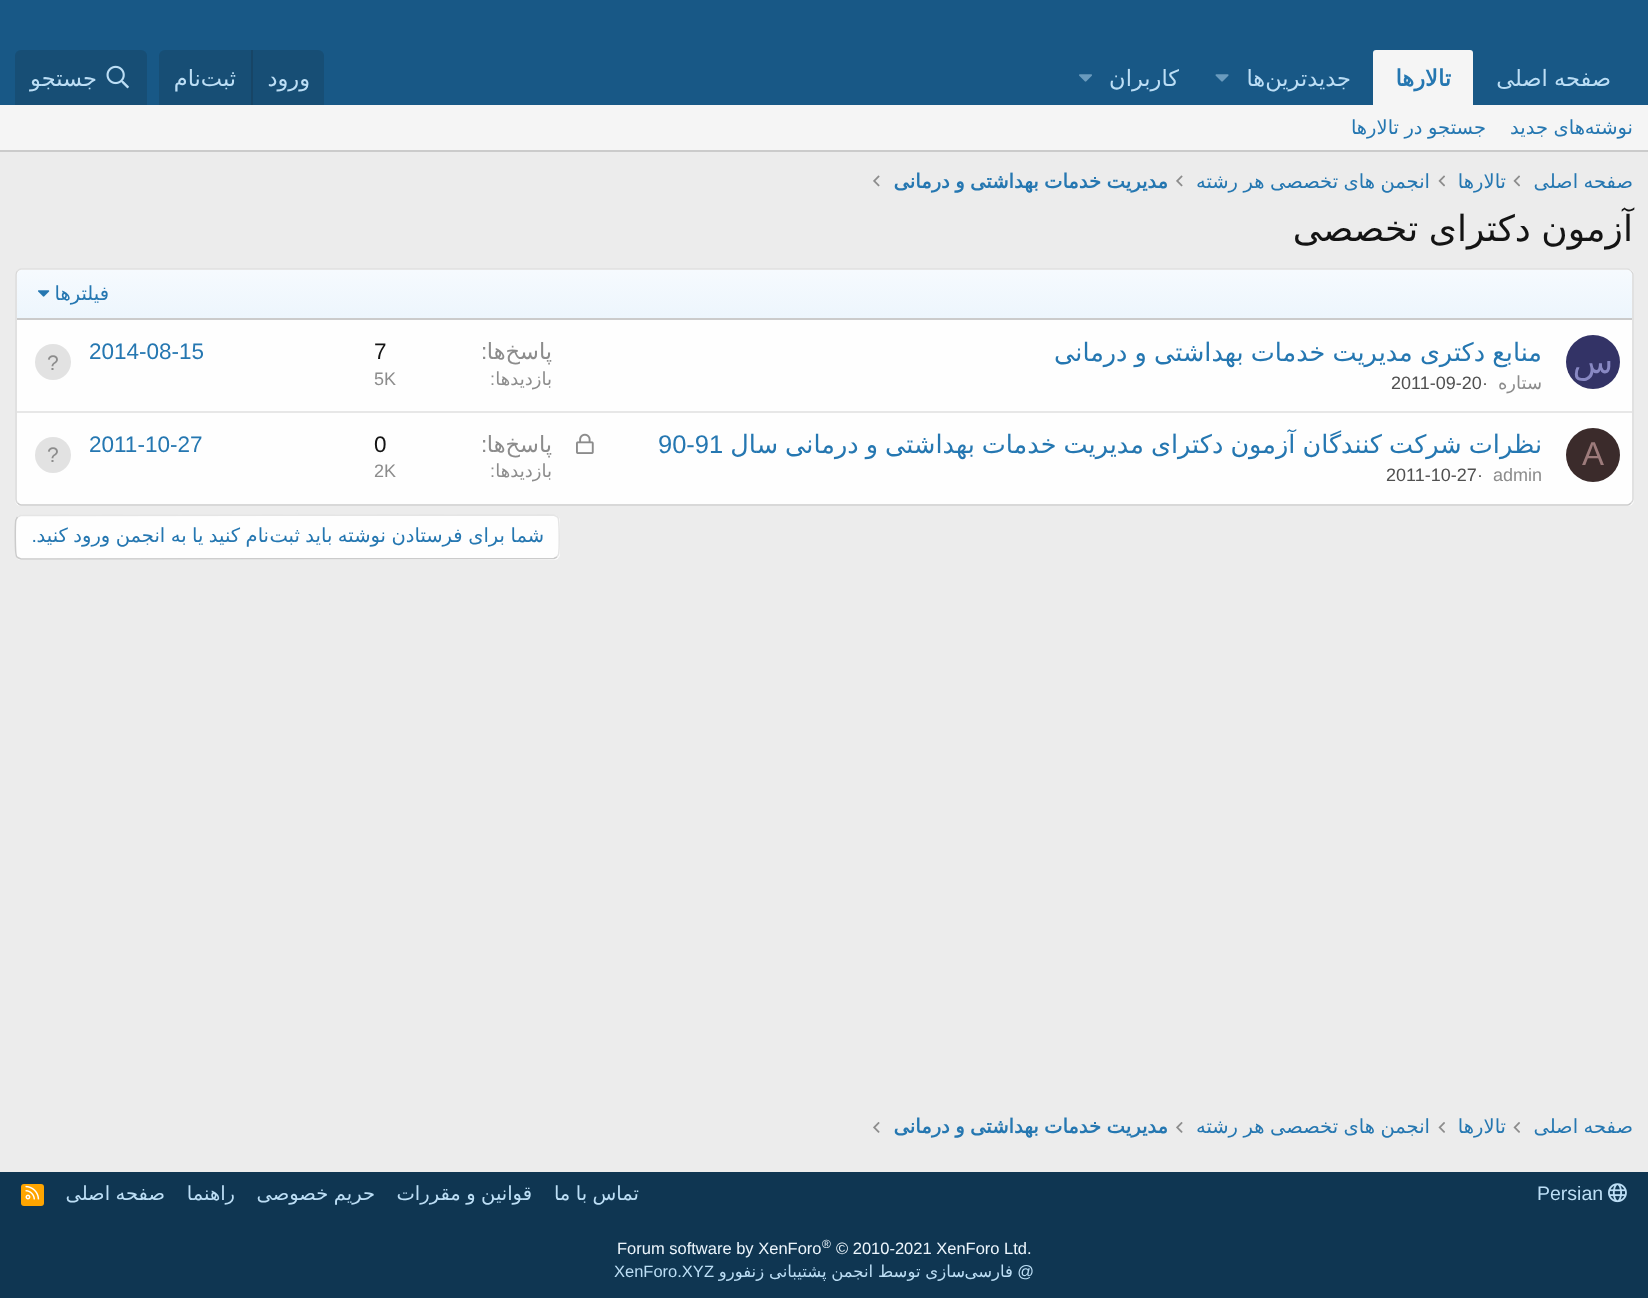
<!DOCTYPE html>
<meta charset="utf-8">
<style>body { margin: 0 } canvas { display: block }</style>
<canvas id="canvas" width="1648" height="1298"></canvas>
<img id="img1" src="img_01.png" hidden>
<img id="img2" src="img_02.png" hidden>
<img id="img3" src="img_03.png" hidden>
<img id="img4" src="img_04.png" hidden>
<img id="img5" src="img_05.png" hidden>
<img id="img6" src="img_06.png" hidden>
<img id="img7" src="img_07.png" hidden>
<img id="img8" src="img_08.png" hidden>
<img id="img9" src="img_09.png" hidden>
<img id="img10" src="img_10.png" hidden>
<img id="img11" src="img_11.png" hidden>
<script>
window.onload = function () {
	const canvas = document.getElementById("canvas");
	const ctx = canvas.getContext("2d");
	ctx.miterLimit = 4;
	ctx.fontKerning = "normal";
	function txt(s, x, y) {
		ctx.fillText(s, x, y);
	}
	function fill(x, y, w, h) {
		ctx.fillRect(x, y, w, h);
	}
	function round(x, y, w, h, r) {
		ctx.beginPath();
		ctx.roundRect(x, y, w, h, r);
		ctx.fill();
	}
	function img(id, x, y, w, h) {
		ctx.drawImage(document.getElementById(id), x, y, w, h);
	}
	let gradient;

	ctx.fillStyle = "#ECECEC";
	fill(0, 0, 1648, 1298);
	ctx.fillStyle = "#185886";
	fill(0, 0, 1648, 105);
	ctx.fillStyle = "#F5F5F5";
	ctx.beginPath();
	ctx.roundRect(1373, 50, 100, 55, [3, 3, 0, 0]);
	ctx.fill();
	img("img1", 1215, 74, 14, 8);
	img("img2", 1079, 74, 13, 8);
	ctx.fillStyle = "#174E75";
	ctx.beginPath();
	ctx.roundRect(159, 50, 165, 55, [6, 6, 0, 0]);
	ctx.fill();
	ctx.fillStyle = "#174566";
	fill(251, 50, 2, 55);
	ctx.fillStyle = "#174E75";
	ctx.beginPath();
	ctx.roundRect(15, 50, 132, 55, [6, 6, 0, 0]);
	ctx.fill();
	img("img3", 106, 65, 23, 24);
	ctx.fillStyle = "#F5F5F5";
	fill(0, 105, 1648, 45);
	ctx.fillStyle = "#CBCBCB";
	fill(0, 150, 1648, 2);
	img("img4", 1513, 175, 7, 12);
	img("img4", 1438, 175, 7, 12);
	img("img5", 1176, 175, 7, 12);
	img("img5", 873, 175, 7, 12);
	ctx.fillStyle = "#FEFEFE";
	round(15, 269, 1619, 237, 6);
	ctx.beginPath();
	ctx.moveTo(17.5, 271);
	ctx.bezierCurveTo(18.5, 270, 19.5, 269, 21, 269);
	ctx.lineTo(1627.5, 269);
	ctx.bezierCurveTo(1629, 269, 1630, 270, 1631, 271);
	ctx.strokeStyle = "#DFDFDF";
	ctx.lineWidth = 1.5;
	ctx.stroke();
	ctx.beginPath();
	ctx.moveTo(1631, 271);
	ctx.bezierCurveTo(1632, 272, 1633, 273, 1633, 274.5);
	ctx.lineTo(1633, 499.5);
	ctx.bezierCurveTo(1633, 501, 1632, 502, 1631, 503);
	ctx.strokeStyle = "#D8D8D8";
	ctx.stroke();
	ctx.beginPath();
	ctx.moveTo(1631, 503);
	ctx.bezierCurveTo(1630, 504, 1629, 505, 1627.5, 505);
	ctx.lineTo(21, 505);
	ctx.bezierCurveTo(19.5, 505, 18.5, 504, 17.5, 503);
	ctx.strokeStyle = "#CBCBCB";
	ctx.stroke();
	ctx.beginPath();
	ctx.moveTo(17.5, 503);
	ctx.bezierCurveTo(16.5, 502, 16, 501, 16, 499.5);
	ctx.lineTo(16, 274.5);
	ctx.bezierCurveTo(16, 273, 16.5, 272, 17.5, 271);
	ctx.strokeStyle = "#D8D8D8";
	ctx.stroke();
	gradient = ctx.createLinearGradient(824, 318, 824, 270);
	gradient.addColorStop(0, "#EDF6FD");
	gradient.addColorStop(1, "#F6FAFE");
	ctx.fillStyle = gradient;
	ctx.beginPath();
	ctx.roundRect(17, 270, 1615, 48, [5, 5, 0, 0]);
	ctx.fill();
	ctx.fillStyle = "#CBCBCB";
	fill(17, 318, 1615, 2);
	img("img6", 38, 290, 12, 7);
	ctx.fillStyle = "#333366";
	ctx.beginPath();
	ctx.arc(1593, 362, 27, 0, Math.PI * 2);
	ctx.fill();
	ctx.fillStyle = "#E2E2E2";
	ctx.beginPath();
	ctx.arc(53, 362, 18, 0, Math.PI * 2);
	ctx.fill();
	ctx.fillStyle = "#E7E7E7";
	fill(17, 411, 1615, 2);
	ctx.fillStyle = "#3B2B2B";
	ctx.beginPath();
	ctx.arc(1593, 455, 27, 0, Math.PI * 2);
	ctx.fill();
	img("img7", 576, 433, 18, 21);
	ctx.fillStyle = "#E2E2E2";
	ctx.beginPath();
	ctx.arc(53, 455, 18, 0, Math.PI * 2);
	ctx.fill();
	ctx.fillStyle = "#FEFEFE";
	round(15, 515, 545, 45, 6);
	ctx.beginPath();
	ctx.moveTo(17.5, 517);
	ctx.lineTo(20.5, 515.5);
	ctx.lineTo(553.5, 515);
	ctx.bezierCurveTo(555, 515.5, 557, 516, 558, 517.5);
	ctx.bezierCurveTo(559.5, 520, 559.5, 551.5, 558.5, 554.5);
	ctx.lineTo(557, 557);
	ctx.strokeStyle = "#E5E5E5";
	ctx.stroke();
	ctx.beginPath();
	ctx.moveTo(557, 557);
	ctx.lineTo(554, 558.5);
	ctx.lineTo(21, 559);
	ctx.bezierCurveTo(19.5, 558.5, 17.5, 558, 16.5, 556.5);
	ctx.bezierCurveTo(15, 554, 15, 522.5, 16, 519.5);
	ctx.lineTo(17.5, 517);
	ctx.strokeStyle = "#CBCBCB";
	ctx.stroke();
	img("img8", 1513, 1122, 7, 11);
	img("img8", 1438, 1122, 7, 11);
	img("img9", 1176, 1122, 7, 11);
	img("img9", 873, 1122, 7, 11);
	ctx.fillStyle = "#0F3652";
	fill(0, 1172, 1648, 126);
	img("img10", 1608, 1183, 19, 20);
	ctx.fillStyle = "#FFA500";
	round(21, 1184, 23, 22, 3);
	img("img11", 25, 1185, 15, 15);
	ctx.wordSpacing = "-1px";
	ctx.direction = "rtl";
	ctx.font = "22.5px DejaVu Sans";
	ctx.fillStyle = "#BCDEF5";
	txt("صفحه اصلی", 1611, 86);
	ctx.wordSpacing = "0px";
	ctx.font = "bold 22.5px DejaVu Sans";
	ctx.fillStyle = "#2577B1";
	txt("تالارها", 1451, 86);
	ctx.font = "22.5px DejaVu Sans";
	ctx.fillStyle = "#BCDEF5";
	txt("جدیدترین‌ها", 1351, 86);
	txt("کاربران", 1179, 86);
	txt("ورود", 310, 86);
	txt("ثبت‌نام", 236, 86);
	txt("جستجو", 97, 86);
	ctx.font = "19.5px DejaVu Sans";
	ctx.fillStyle = "#2577B1";
	txt("نوشته", 1633, 134);
	ctx.wordSpacing = "-0.75px";
	txt("های جدید", 1585, 134);
	txt("جستجو در تالارها", 1486, 134);
	txt("صفحه اصلی", 1633, 188);
	ctx.wordSpacing = "0px";
	txt("تالارها", 1506, 188);
	ctx.save();
	ctx.beginPath();
	ctx.rect(1196, 167, 234, 30);
	ctx.clip();
	ctx.wordSpacing = "-0.75px";
	txt("انجمن های تخصصی هر رشته", 1430, 188);
	ctx.restore();
	ctx.save();
	ctx.beginPath();
	ctx.rect(894, 167, 275, 30);
	ctx.clip();
	ctx.wordSpacing = "-0.75px";
	ctx.font = "bold 19.5px DejaVu Sans";
	txt("مدیریت خدمات بهداشتی و درمانی", 1168, 188);
	ctx.restore();
	ctx.wordSpacing = "-1px";
	ctx.font = "36px DejaVu Sans";
	ctx.fillStyle = "#141414";
	txt("آزمون دکترای تخصصی", 1633, 241);
	ctx.wordSpacing = "0px";
	ctx.font = "19.5px DejaVu Sans";
	ctx.fillStyle = "#2577B1";
	txt("فیلترها", 109, 300);
	ctx.wordSpacing = "-1px";
	ctx.font = "25.5px DejaVu Sans";
	txt("منابع دکتری مدیریت خدمات بهداشتی و درمانی", 1542, 361);
	ctx.wordSpacing = "0px";
	ctx.font = "18px DejaVu Sans";
	ctx.fillStyle = "#8C8C8C";
	txt("ستاره", 1542, 389);
	ctx.direction = "ltr";
	ctx.font = "18px Liberation Sans";
	ctx.fillStyle = "#505050";
	txt("·", 1482, 389);
	txt("2011-09-20", 1391, 389);
	ctx.direction = "rtl";
	ctx.font = "22.5px DejaVu Sans";
	ctx.fillStyle = "#8C8C8C";
	txt("پاسخ‌ها", 552, 359);
	ctx.direction = "ltr";
	ctx.font = "22.5px Liberation Sans";
	txt(":", 481, 359);
	ctx.fillStyle = "#141414";
	txt("7", 374, 359);
	ctx.direction = "rtl";
	ctx.font = "18px DejaVu Sans";
	ctx.fillStyle = "#8C8C8C";
	txt("بازدیدها", 552, 385);
	ctx.direction = "ltr";
	ctx.font = "18px Liberation Sans";
	txt(":", 490, 385);
	txt("5K", 374, 385);
	ctx.font = "22.5px Liberation Sans";
	ctx.fillStyle = "#2577B1";
	txt("2014-08-15", 89, 359);
	ctx.direction = "rtl";
	ctx.font = "33px DejaVu Sans";
	ctx.fillStyle = "#8888C3";
	txt("س", 1613, 373);
	ctx.direction = "ltr";
	ctx.font = "21px Liberation Sans";
	ctx.fillStyle = "#8C8C8C";
	txt("?", 47, 370);
	ctx.font = "33px Liberation Sans";
	ctx.fillStyle = "#9D7B7B";
	txt("A", 1582, 465);
	ctx.wordSpacing = "-1px";
	ctx.direction = "rtl";
	ctx.font = "25.5px DejaVu Sans";
	ctx.fillStyle = "#2577B1";
	txt("نظرات شرکت کنندگان آزمون دکترای مدیریت خدمات بهداشتی و درمانی سال", 1542, 453);
	ctx.wordSpacing = "0px";
	ctx.direction = "ltr";
	ctx.font = "25.5px Liberation Sans";
	txt("90-91", 658, 453);
	ctx.font = "18px Liberation Sans";
	ctx.fillStyle = "#8C8C8C";
	txt("admin", 1493, 481);
	ctx.fillStyle = "#505050";
	txt("·", 1477, 481);
	txt("2011-10-27", 1386, 481);
	ctx.direction = "rtl";
	ctx.font = "22.5px DejaVu Sans";
	ctx.fillStyle = "#8C8C8C";
	txt("پاسخ‌ها", 552, 452);
	ctx.direction = "ltr";
	ctx.font = "22.5px Liberation Sans";
	txt(":", 481, 452);
	ctx.fillStyle = "#141414";
	txt("0", 374, 452);
	ctx.direction = "rtl";
	ctx.font = "18px DejaVu Sans";
	ctx.fillStyle = "#8C8C8C";
	txt("بازدیدها", 552, 477);
	ctx.direction = "ltr";
	ctx.font = "18px Liberation Sans";
	txt(":", 490, 477);
	txt("2K", 374, 477);
	ctx.font = "22.5px Liberation Sans";
	ctx.fillStyle = "#2577B1";
	txt("2011-10-27", 89, 452);
	ctx.font = "21px Liberation Sans";
	ctx.fillStyle = "#8C8C8C";
	txt("?", 47, 462);
	ctx.wordSpacing = "-0.75px";
	ctx.direction = "rtl";
	ctx.font = "19.5px DejaVu Sans";
	ctx.fillStyle = "#2577B1";
	txt("نام کنید یا به انجمن ورود کنید", 269, 542);
	txt("شما برای فرستادن نوشته باید ثبت", 544, 542);
	ctx.wordSpacing = "0px";
	ctx.font = "19.5px Liberation Sans";
	txt(".", 37, 542);
	ctx.wordSpacing = "-0.75px";
	ctx.font = "19.5px DejaVu Sans";
	txt("صفحه اصلی", 1633, 1133);
	ctx.wordSpacing = "0px";
	txt("تالارها", 1506, 1133);
	ctx.save();
	ctx.beginPath();
	ctx.rect(1196, 1113, 234, 29);
	ctx.clip();
	ctx.wordSpacing = "-0.75px";
	txt("انجمن های تخصصی هر رشته", 1430, 1133);
	ctx.restore();
	ctx.save();
	ctx.beginPath();
	ctx.rect(894, 1113, 275, 29);
	ctx.clip();
	ctx.wordSpacing = "-0.75px";
	ctx.font = "bold 19.5px DejaVu Sans";
	txt("مدیریت خدمات بهداشتی و درمانی", 1168, 1133);
	ctx.restore();
	ctx.direction = "ltr";
	ctx.font = "19.5px Liberation Sans";
	ctx.fillStyle = "#BCDEF5";
	txt("Persian", 1537, 1200);
	ctx.wordSpacing = "-0.75px";
	ctx.direction = "rtl";
	ctx.font = "19.5px DejaVu Sans";
	txt("تماس با ما", 639, 1200);
	txt("قوانین و مقررات", 532, 1200);
	txt("حریم خصوصی", 375, 1200);
	ctx.wordSpacing = "0px";
	txt("راهنما", 235, 1200);
	ctx.wordSpacing = "-0.75px";
	txt("صفحه اصلی", 165, 1200);
	ctx.wordSpacing = "0px";
	ctx.direction = "ltr";
	ctx.font = "16.5px Liberation Sans";
	ctx.fillStyle = "#EDF6FD";
	txt("© 2010-2021 XenForo Ltd.", 836, 1254);
	ctx.font = "12px Liberation Sans";
	txt("®", 822, 1248);
	ctx.font = "16.5px Liberation Sans";
	txt("Forum software by XenForo", 617, 1254);
	ctx.direction = "rtl";
	ctx.fillStyle = "#BCDEF5";
	txt("@", 1034, 1277);
	ctx.font = "16.5px DejaVu Sans";
	txt("فارسی", 1013, 1277);
	ctx.wordSpacing = "-0.5px";
	txt("سازی توسط انجمن پشتیبانی زنفورو", 965, 1277);
	ctx.wordSpacing = "0px";
	ctx.direction = "ltr";
	ctx.font = "16.5px Liberation Sans";
	txt("XenForo.XYZ", 614, 1277);
};
</script>
